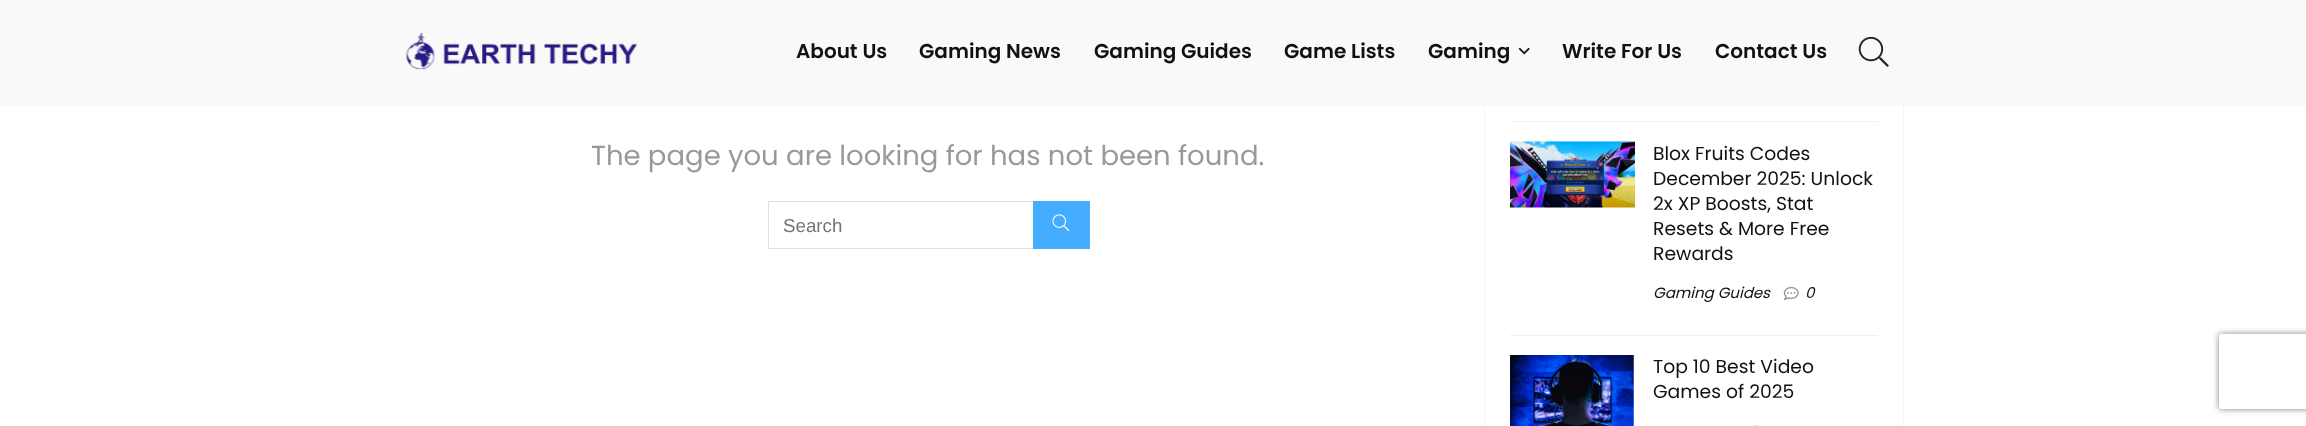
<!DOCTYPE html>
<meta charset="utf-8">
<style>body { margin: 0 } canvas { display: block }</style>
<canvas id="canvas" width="2306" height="426"></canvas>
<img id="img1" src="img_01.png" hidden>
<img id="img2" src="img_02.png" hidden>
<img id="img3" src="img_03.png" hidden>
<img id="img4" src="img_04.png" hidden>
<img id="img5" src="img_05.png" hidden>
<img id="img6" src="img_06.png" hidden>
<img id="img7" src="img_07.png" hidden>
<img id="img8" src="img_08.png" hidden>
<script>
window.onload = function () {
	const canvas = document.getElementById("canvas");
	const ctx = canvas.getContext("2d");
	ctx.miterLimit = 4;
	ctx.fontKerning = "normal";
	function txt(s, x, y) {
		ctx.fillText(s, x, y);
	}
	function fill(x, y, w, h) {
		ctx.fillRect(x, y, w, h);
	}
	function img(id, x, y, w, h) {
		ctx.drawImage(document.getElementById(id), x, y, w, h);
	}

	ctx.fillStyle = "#FFFFFF";
	fill(0, 0, 2306, 426);
	ctx.strokeStyle = "#F4F4F4";
	ctx.strokeRect(1484.5, -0.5, 419, 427);
	ctx.fillStyle = "#F9F9F9";
	fill(0, 0, 2306, 106);
	img("img1", 406, 32, 232, 38);
	img("img2", 1518, 47, 12, 8);
	img("img3", 1858, 36, 31, 31);
	ctx.strokeStyle = "#E1E1E1";
	ctx.strokeRect(768.5, 201.5, 321, 47);
	ctx.fillStyle = "#44ADFF";
	fill(1033, 201, 57, 48);
	img("img4", 1052, 214, 18, 17);
	ctx.fillStyle = "#F0F0F0";
	fill(1510, 121, 368, 1);
	fill(1510, 335, 368, 1);
	img("img5", 1510, 141, 125, 67);
	img("img6", 1783, 286, 16, 14);
	img("img7", 1510, 355, 124, 71);
	img("img8", 1754, 425, 5, 1);
	ctx.save();
	ctx.beginPath();
	ctx.moveTo(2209, 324);
	ctx.lineTo(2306, 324);
	ctx.lineTo(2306, 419);
	ctx.lineTo(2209, 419);
	ctx.closePath();
	ctx.moveTo(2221.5, 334);
	ctx.lineTo(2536.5, 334);
	ctx.bezierCurveTo(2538, 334, 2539, 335, 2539, 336.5);
	ctx.lineTo(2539, 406.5);
	ctx.bezierCurveTo(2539, 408, 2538, 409, 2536.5, 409);
	ctx.lineTo(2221.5, 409);
	ctx.bezierCurveTo(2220, 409, 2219, 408, 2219, 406.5);
	ctx.lineTo(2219, 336.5);
	ctx.bezierCurveTo(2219, 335, 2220, 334, 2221.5, 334);
	ctx.closePath();
	ctx.clip("evenodd");
	ctx.fillStyle = "#808080";
	ctx.filter = "blur(3px)";
	ctx.beginPath();
	ctx.roundRect(2219, 334, 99, 75, 2.5);
	ctx.fill();
	ctx.filter = "none";
	ctx.restore();
	ctx.font = "600 20px Poppins";
	ctx.fillStyle = "#111111";
	txt("About Us", 796, 58);
	txt("Gaming News", 919, 58);
	txt("Gaming Guides", 1094, 58);
	txt("Game Lists", 1284, 58);
	txt("Gaming", 1428, 58);
	txt("Write For Us", 1562, 58);
	txt("Contact Us", 1715, 58);
	ctx.font = "27.5px Poppins";
	ctx.fillStyle = "#999999";
	txt("The page you are looking for has not been found.", 591, 165);
	ctx.font = "18.75px Liberation Sans";
	ctx.fillStyle = "#757575";
	txt("Search", 783, 232);
	ctx.font = "18.75px Poppins";
	ctx.fillStyle = "#111111";
	txt("Blox Fruits Codes", 1653, 160);
	txt("December 2025: Unlock", 1653, 185);
	txt("2x XP Boosts, Stat", 1653, 210);
	txt("Resets & More Free", 1653, 235);
	txt("Rewards", 1653, 260);
	ctx.font = "italic 15px Poppins";
	txt("Gaming Guides", 1653, 298);
	txt("0", 1805, 298);
	ctx.font = "18.75px Poppins";
	txt("Top 10 Best Video", 1653, 373);
	txt("Games of 2025", 1653, 398);
};
</script>
